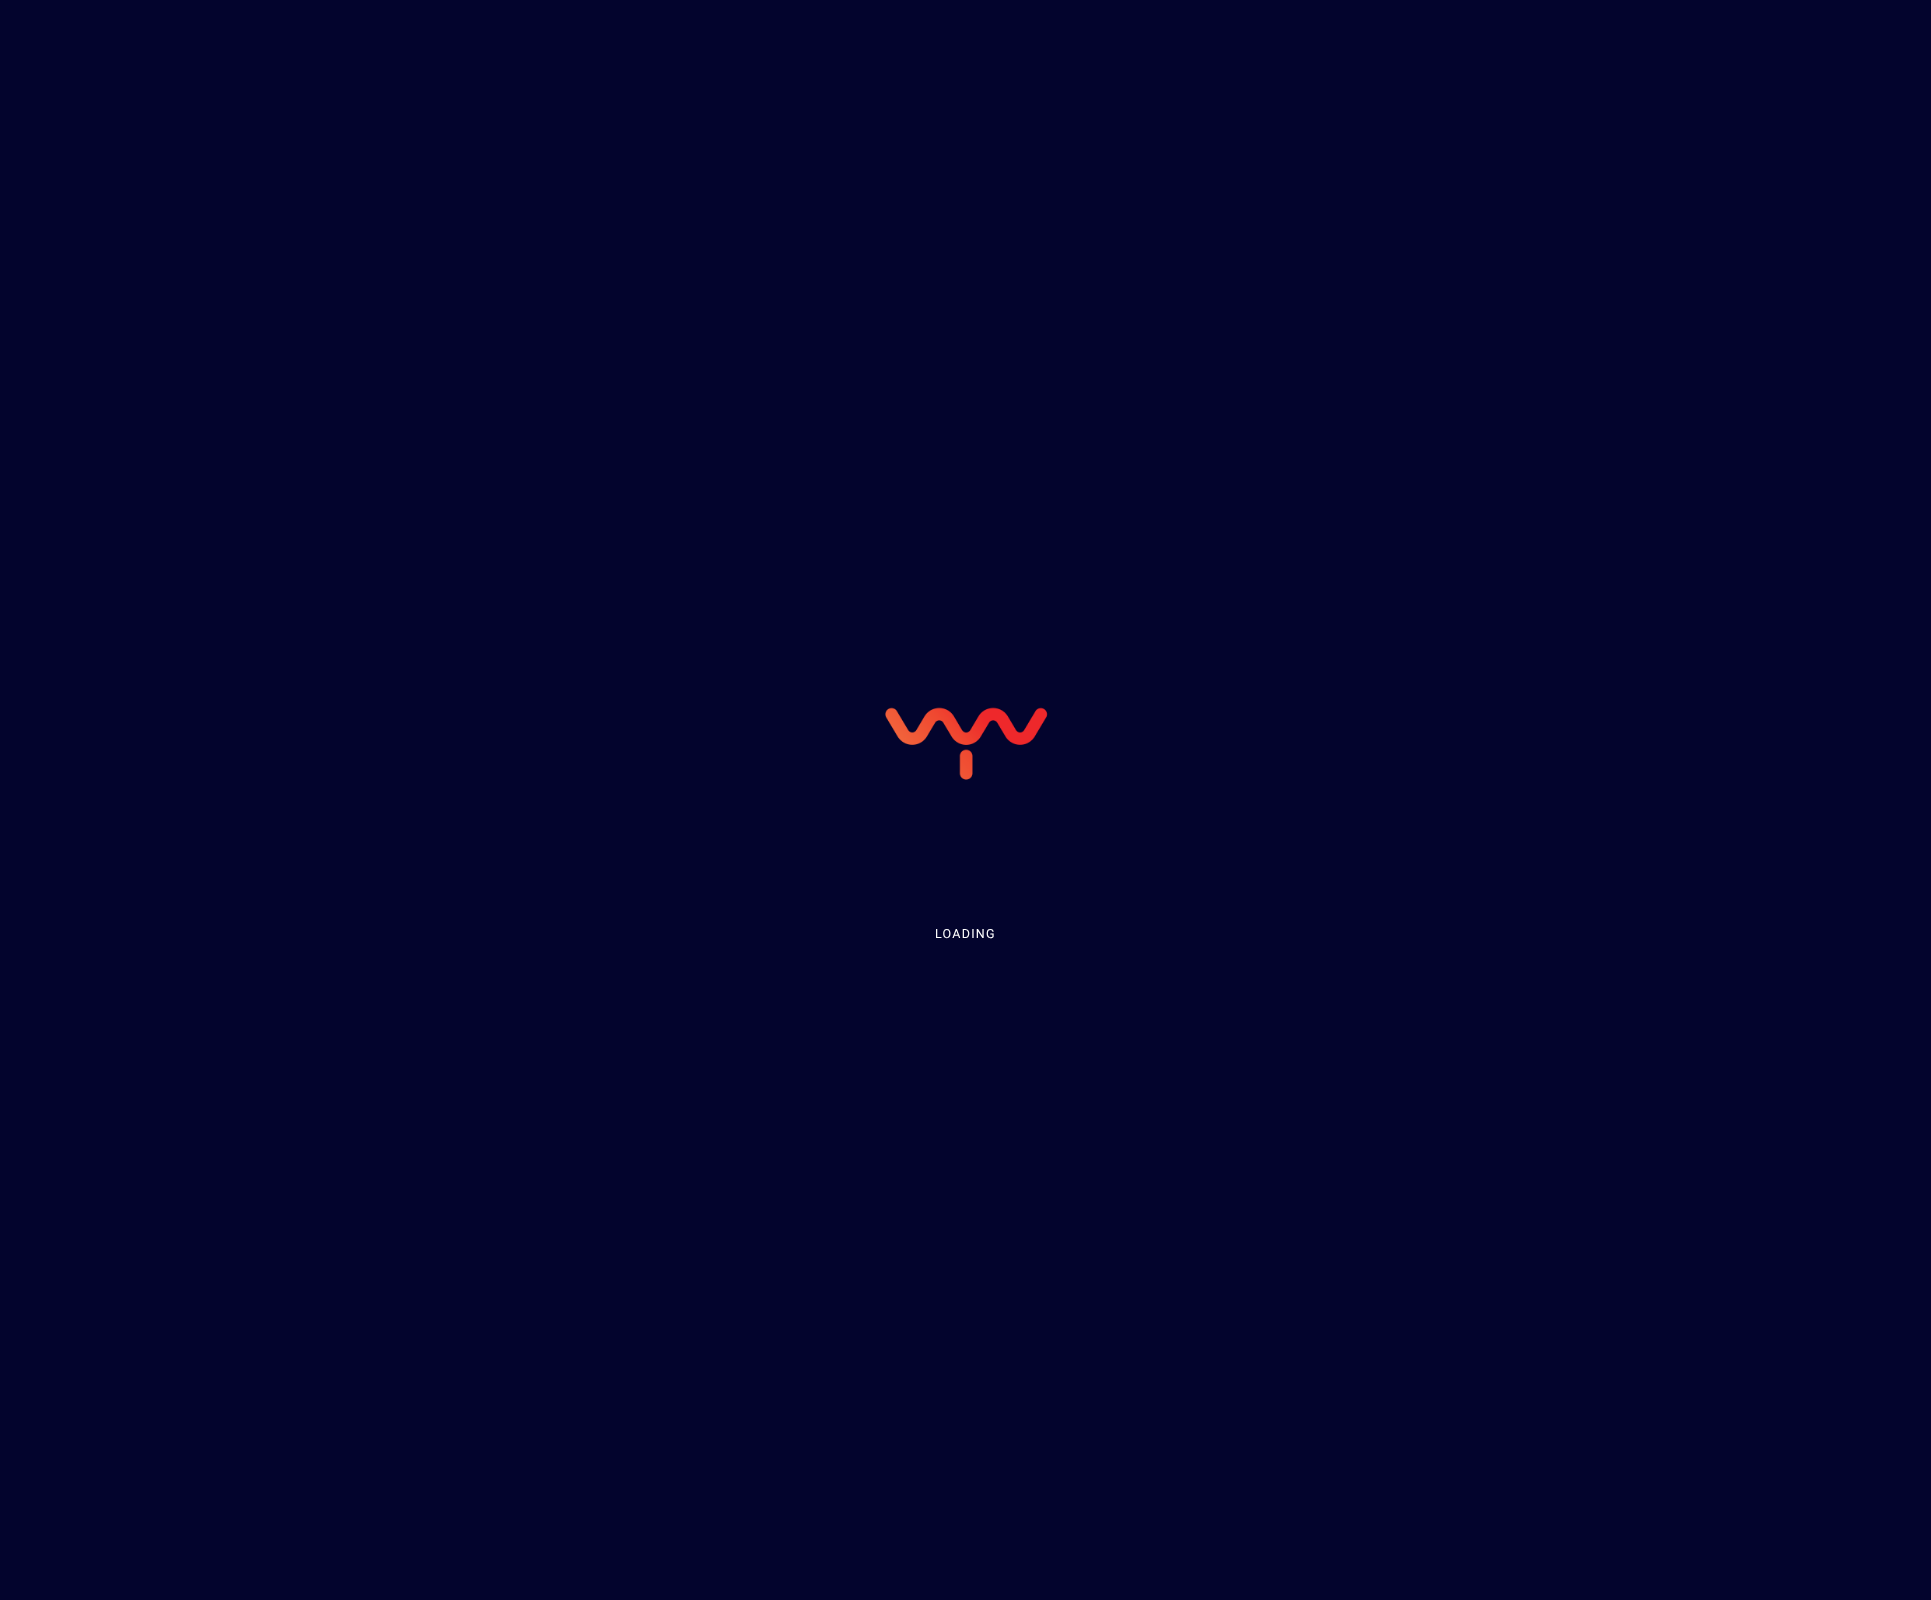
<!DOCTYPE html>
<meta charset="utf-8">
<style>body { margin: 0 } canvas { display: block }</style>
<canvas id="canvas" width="1931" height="1600"></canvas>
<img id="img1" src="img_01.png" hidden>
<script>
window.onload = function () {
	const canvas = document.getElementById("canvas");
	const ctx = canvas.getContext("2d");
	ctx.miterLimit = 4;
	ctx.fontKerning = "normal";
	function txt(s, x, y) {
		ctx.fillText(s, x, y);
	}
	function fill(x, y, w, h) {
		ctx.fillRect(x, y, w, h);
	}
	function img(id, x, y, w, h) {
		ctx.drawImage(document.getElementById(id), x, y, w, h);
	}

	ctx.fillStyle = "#03042D";
	fill(0, 0, 1931, 1600);
	img("img1", 885, 707, 163, 73);
	ctx.letterSpacing = "1.25px";
	ctx.font = "12.5px Roboto";
	ctx.fillStyle = "#FFFFFF";
	txt("LOADING", 935, 938);
};
</script>
